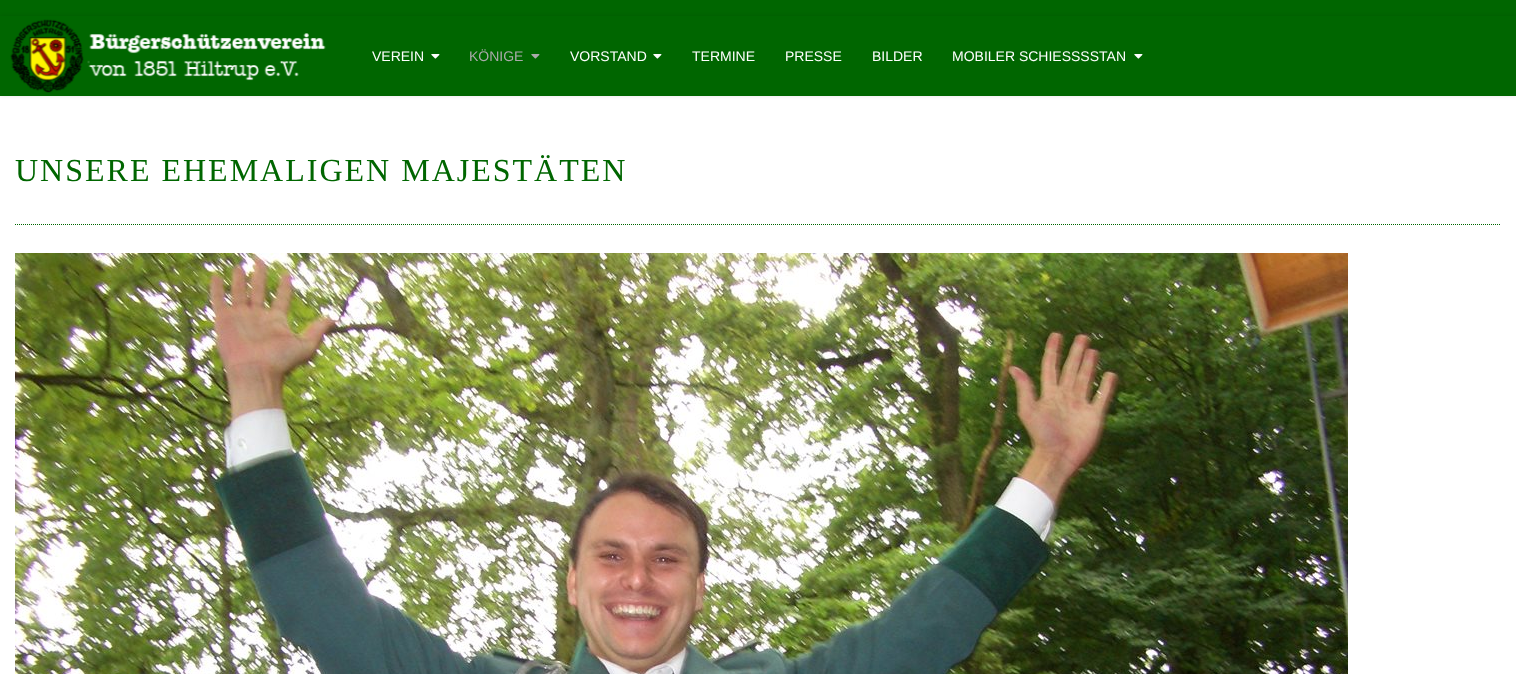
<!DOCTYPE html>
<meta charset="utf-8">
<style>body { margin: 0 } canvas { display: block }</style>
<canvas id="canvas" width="1516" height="674"></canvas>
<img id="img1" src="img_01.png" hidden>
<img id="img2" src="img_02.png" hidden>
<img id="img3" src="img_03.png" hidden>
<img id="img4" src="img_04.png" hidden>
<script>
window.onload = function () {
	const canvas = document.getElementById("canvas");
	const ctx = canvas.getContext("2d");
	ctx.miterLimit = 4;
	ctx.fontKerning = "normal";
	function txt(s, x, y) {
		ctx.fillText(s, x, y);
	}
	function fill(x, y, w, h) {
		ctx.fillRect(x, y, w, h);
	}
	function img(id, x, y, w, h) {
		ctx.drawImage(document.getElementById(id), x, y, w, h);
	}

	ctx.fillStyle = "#FFFFFF";
	fill(0, 0, 1516, 674);
	ctx.fillStyle = "#006600";
	fill(0, 0, 1516, 16);
	ctx.fillStyle = "rgba(0, 0, 0, 0.1)";
	ctx.filter = "blur(2px)";
	ctx.beginPath();
	ctx.rect(0, 16, 1516, 80);
	ctx.fill();
	ctx.filter = "none";
	ctx.fillStyle = "#006600";
	fill(0, 16, 1516, 80);
	img("img1", 10, 19, 316, 74);
	img("img2", 431, 54, 9, 5);
	img("img3", 531, 54, 9, 5);
	img("img2", 653, 54, 9, 5);
	img("img2", 1134, 54, 9, 5);
	ctx.beginPath();
	ctx.moveTo(15, 224.5);
	ctx.lineTo(1501, 224.5);
	ctx.strokeStyle = "#006600";
	ctx.setLineDash([1, 1]);
	ctx.stroke();
	img("img4", 15, 253, 1333, 421);
	ctx.font = "14px Liberation Sans";
	ctx.fillStyle = "#FFFFFF";
	txt("VEREIN", 372, 61);
	ctx.fillStyle = "#AAAAAA";
	txt("KÖNIGE", 469, 61);
	ctx.fillStyle = "#FFFFFF";
	txt("VORSTAND", 570, 61);
	txt("TERMINE", 692, 61);
	txt("PRESSE", 785, 61);
	txt("BILDER", 872, 61);
	txt("MOBILER SCHIESSSSTAN", 952, 61);
	ctx.letterSpacing = "2px";
	ctx.font = "32px Liberation Serif";
	ctx.fillStyle = "#006600";
	txt("UNSERE EHEMALIGEN MAJESTÄTEN", 15, 181);
};
</script>
